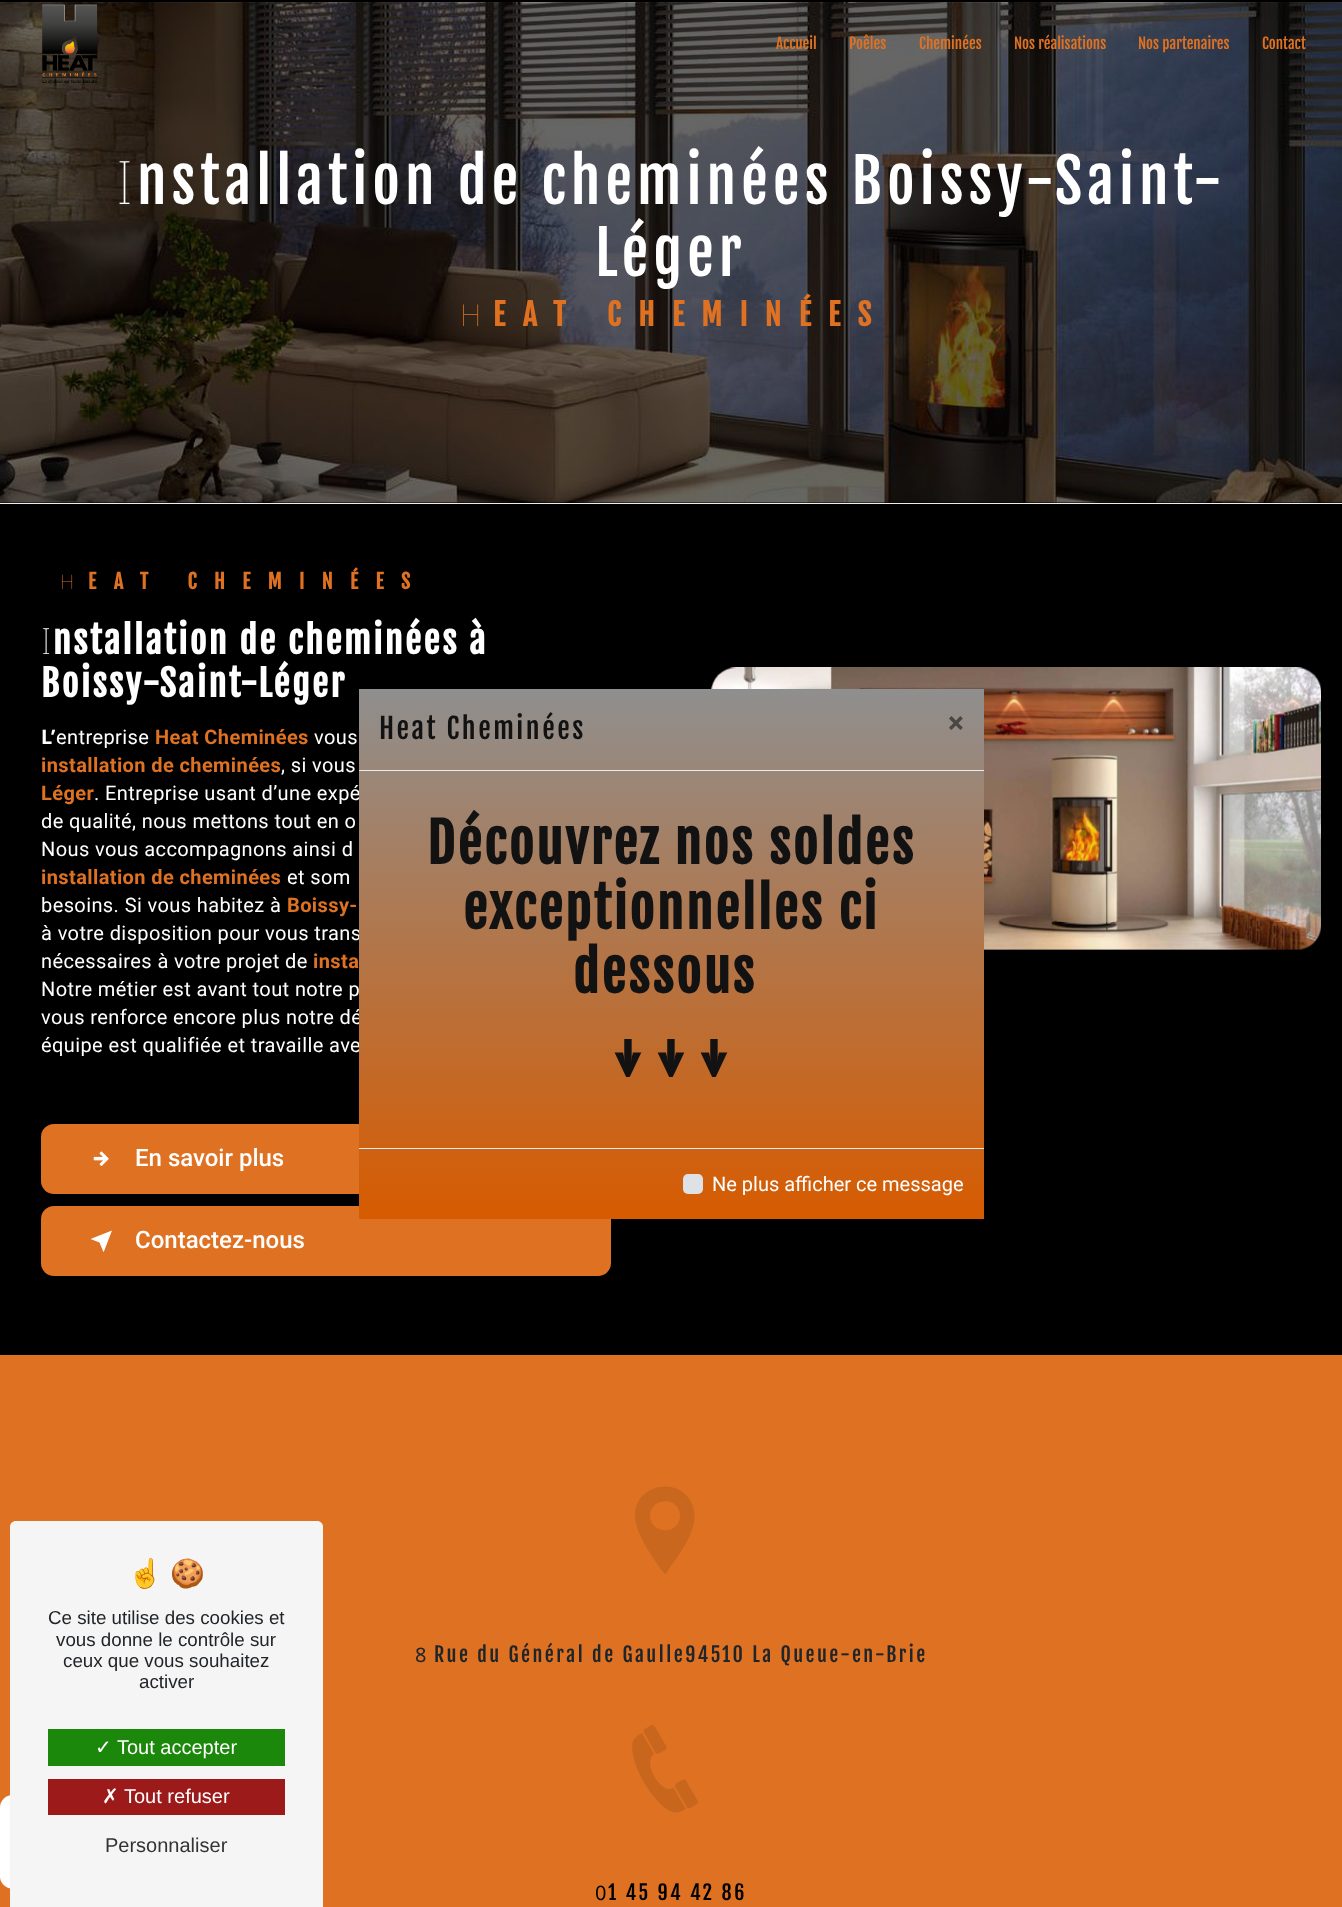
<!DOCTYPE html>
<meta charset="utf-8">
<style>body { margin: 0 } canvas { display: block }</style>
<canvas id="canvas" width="1342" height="1907"></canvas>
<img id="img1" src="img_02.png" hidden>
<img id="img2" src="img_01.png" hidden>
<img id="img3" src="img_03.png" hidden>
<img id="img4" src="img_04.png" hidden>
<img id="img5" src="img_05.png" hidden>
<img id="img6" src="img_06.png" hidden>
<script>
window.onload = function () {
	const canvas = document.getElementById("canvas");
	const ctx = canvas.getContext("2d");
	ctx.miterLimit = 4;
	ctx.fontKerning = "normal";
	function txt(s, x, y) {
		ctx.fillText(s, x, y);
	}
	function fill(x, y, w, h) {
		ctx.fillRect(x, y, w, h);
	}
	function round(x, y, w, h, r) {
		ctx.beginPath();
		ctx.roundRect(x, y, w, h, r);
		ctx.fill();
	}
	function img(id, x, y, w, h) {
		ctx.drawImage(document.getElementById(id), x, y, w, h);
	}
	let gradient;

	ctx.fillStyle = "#000000";
	fill(0, 0, 1342, 1907);
	img("img1", 0, 2, 1342, 501);
	img("img2", 42, 4, 56, 79);
	ctx.fillStyle = "#EDEDED";
	fill(0, 503, 1342, 1);
	ctx.fillStyle = "#DF7222";
	round(41, 1124, 570, 70, 13);
	img("img3", 93, 1151, 16, 15);
	round(41, 1206, 570, 70, 13);
	ctx.fillStyle = "#FFFFFF";
	ctx.beginPath();
	ctx.moveTo(112, 1230.5);
	ctx.lineTo(104.5, 1250);
	ctx.bezierCurveTo(103.5, 1252, 104, 1253, 103, 1251);
	ctx.lineTo(99.5, 1242.5);
	ctx.lineTo(90.5, 1239);
	ctx.closePath();
	ctx.fill();
	img("img4", 711, 667, 610, 283);
	ctx.fillStyle = "#DF7222";
	fill(0, 1355, 1342, 552);
	ctx.fillStyle = "#C9671F";
	ctx.beginPath();
	ctx.moveTo(663, 1572);
	ctx.bezierCurveTo(653, 1558, 637, 1536, 635, 1518);
	ctx.bezierCurveTo(632, 1485, 679, 1474, 692, 1504);
	ctx.bezierCurveTo(702, 1525, 681, 1552, 669, 1569);
	ctx.bezierCurveTo(666, 1573, 666, 1576, 663, 1572);
	ctx.closePath();
	ctx.moveTo(680, 1516);
	ctx.bezierCurveTo(680, 1497, 651, 1496, 650, 1516);
	ctx.bezierCurveTo(650, 1534, 679, 1536, 680, 1516);
	ctx.closePath();
	ctx.fill();
	img("img5", 632, 1725, 66, 88);
	img("img6", 0, 1795, 10, 94);
	ctx.fillStyle = "#F5F5F5";
	ctx.beginPath();
	ctx.moveTo(16, 1521);
	ctx.lineTo(317, 1521);
	ctx.bezierCurveTo(320.5, 1521, 323, 1523.5, 323, 1527);
	ctx.lineTo(323, 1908);
	ctx.lineTo(10, 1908);
	ctx.lineTo(10, 1527);
	ctx.bezierCurveTo(10, 1523.5, 12.5, 1521, 16, 1521);
	ctx.closePath();
	ctx.fill();
	ctx.fillStyle = "#1B870B";
	fill(48, 1729, 237, 37);
	ctx.fillStyle = "#9C1A1A";
	fill(48, 1779, 237, 36);
	ctx.font = "15px Fjalla One";
	ctx.fillStyle = "#DF7222";
	txt("Accueil", 776, 49);
	txt("Poêles", 849, 49);
	txt("Cheminées", 919, 49);
	txt("Nos réalisations", 1014, 49);
	txt("Nos partenaires", 1138, 49);
	txt("Contact", 1262, 49);
	ctx.letterSpacing = "5px";
	ctx.font = "100 60px Noto Sans";
	ctx.fillStyle = "#FFFFFF";
	txt("I", 116, 204);
	ctx.font = "60px Fjalla One";
	txt("nstallation de cheminées Boissy-Saint-", 137, 204);
	txt("Léger", 595, 276);
	ctx.letterSpacing = "17.5px";
	ctx.font = "100 30px Noto Sans";
	ctx.fillStyle = "#DF7222";
	txt("H", 460, 326);
	ctx.font = "bold 30px Fjalla One";
	txt("EAT CHEMINÉES", 493, 326);
	ctx.font = "100 20px Noto Sans";
	txt("H", 60, 589);
	ctx.font = "bold 20px Fjalla One";
	txt("EAT CHEMINÉES", 88, 589);
	ctx.letterSpacing = "2.5px";
	ctx.font = "100 36px Noto Sans";
	ctx.fillStyle = "#FFFFFF";
	txt("I", 41, 654);
	ctx.font = "bold 36px Fjalla One";
	txt("nstallation de cheminées à", 53, 654);
	txt("Boissy-Saint-Léger", 41, 697);
	ctx.letterSpacing = "0.4px";
	ctx.font = "bold 20px Noto Sans";
	txt("L’", 41, 744);
	ctx.font = "20px Roboto";
	txt("entreprise", 56, 744);
	ctx.font = "bold 20px Roboto";
	ctx.fillStyle = "#DF7222";
	txt("Heat Cheminées", 155, 744);
	ctx.font = "20px Roboto";
	ctx.fillStyle = "#FFFFFF";
	txt("vous", 314, 744);
	ctx.font = "bold 20px Roboto";
	ctx.fillStyle = "#DF7222";
	txt("installation de cheminées", 41, 772);
	ctx.font = "20px Roboto";
	ctx.fillStyle = "#FFFFFF";
	txt(", si vous", 281, 772);
	ctx.font = "bold 20px Roboto";
	ctx.fillStyle = "#DF7222";
	txt("Léger", 41, 800);
	ctx.font = "20px Roboto";
	ctx.fillStyle = "#FFFFFF";
	txt(". Entreprise usant d’une expé", 94, 800);
	txt("de qualité, nous mettons tout en o", 41, 828);
	txt("Nous vous accompagnons ainsi d", 41, 856);
	ctx.font = "bold 20px Roboto";
	ctx.fillStyle = "#DF7222";
	txt("installation de cheminées", 41, 884);
	ctx.font = "20px Roboto";
	ctx.fillStyle = "#FFFFFF";
	txt("et som", 287, 884);
	txt("besoins. Si vous habitez à", 41, 912);
	ctx.font = "bold 20px Roboto";
	ctx.fillStyle = "#DF7222";
	txt("Boissy-", 287, 912);
	ctx.font = "20px Roboto";
	ctx.fillStyle = "#FFFFFF";
	txt("à votre disposition pour vous trans", 41, 940);
	txt("nécessaires à votre projet de", 41, 968);
	ctx.font = "bold 20px Roboto";
	ctx.fillStyle = "#DF7222";
	txt("insta", 313, 968);
	ctx.font = "20px Roboto";
	ctx.fillStyle = "#FFFFFF";
	txt("Notre métier est avant tout notre p", 41, 996);
	txt("vous renforce encore plus notre dé", 41, 1024);
	txt("équipe est qualifiée et travaille ave", 41, 1052);
	ctx.letterSpacing = "0px";
	ctx.font = "500 24px Roboto";
	txt("En savoir plus", 135, 1166);
	txt("Contactez-nous", 135, 1248);
	ctx.letterSpacing = "2.5px";
	ctx.font = "20px Noto Sans";
	ctx.fillStyle = "#212529";
	txt("8", 415, 1662);
	ctx.font = "20px Fjalla One";
	txt("Rue du Général de Gaulle94510 La Queue-en-Brie", 434, 1662);
	ctx.font = "20px Noto Sans";
	ctx.fillStyle = "#000000";
	txt("0", 595, 1900);
	ctx.font = "20px Fjalla One";
	txt("1 45 94 42 86", 608, 1900);
	gradient = ctx.createLinearGradient(671, 689, 671, 1219);
	gradient.addColorStop(0, "#8F8F8F");
	gradient.addColorStop(1, "#D75B00");
	ctx.fillStyle = gradient;
	fill(359, 689, 625, 530);
	ctx.fillStyle = "#E9ECEF";
	fill(359, 770, 625, 1);
	ctx.font = "28px Fjalla One";
	ctx.fillStyle = "#121212";
	txt("Heat Cheminées", 379, 739);
	ctx.letterSpacing = "0px";
	ctx.font = "bold 30px Roboto";
	ctx.fillStyle = "#4A4643";
	txt("×", 948, 733);
	ctx.letterSpacing = "2.5px";
	ctx.font = "bold 54px Fjalla One";
	ctx.fillStyle = "#121212";
	txt("Découvrez nos soldes", 427, 864);
	txt("exceptionnelles ci", 463, 929);
	txt("dessous", 573, 993);
	txt("↓ ↓ ↓", 614, 1077);
	ctx.fillStyle = "#E9ECEF";
	fill(359, 1148, 625, 1);
	ctx.fillStyle = "#DEE2E6";
	round(683, 1174, 20, 20, 5);
	ctx.letterSpacing = "0px";
	ctx.font = "20px Roboto";
	ctx.fillStyle = "#FFFFFF";
	txt("Ne plus afficher ce message", 712, 1191);
	ctx.font = "28px Noto Color Emoji";
	ctx.fillStyle = "#212529";
	txt("☝", 128, 1583);
	txt("🍪", 170, 1583);
	ctx.font = "18.75px Liberation Sans";
	txt("Ce site utilise des cookies et", 48, 1624);
	txt("vous donne le contrôle sur", 56, 1646);
	txt("ceux que vous souhaitez", 63, 1667);
	txt("activer", 139, 1688);
	ctx.font = "20px DejaVu Sans";
	ctx.fillStyle = "#FFFFFF";
	txt("✓", 95, 1754);
	ctx.font = "20px Liberation Sans";
	txt("Tout accepter", 117, 1754);
	ctx.font = "20px DejaVu Sans";
	txt("✗", 102, 1803);
	ctx.font = "20px Liberation Sans";
	txt("Tout refuser", 124, 1803);
	ctx.fillStyle = "#333333";
	txt("Personnaliser", 105, 1852);
};
</script>
